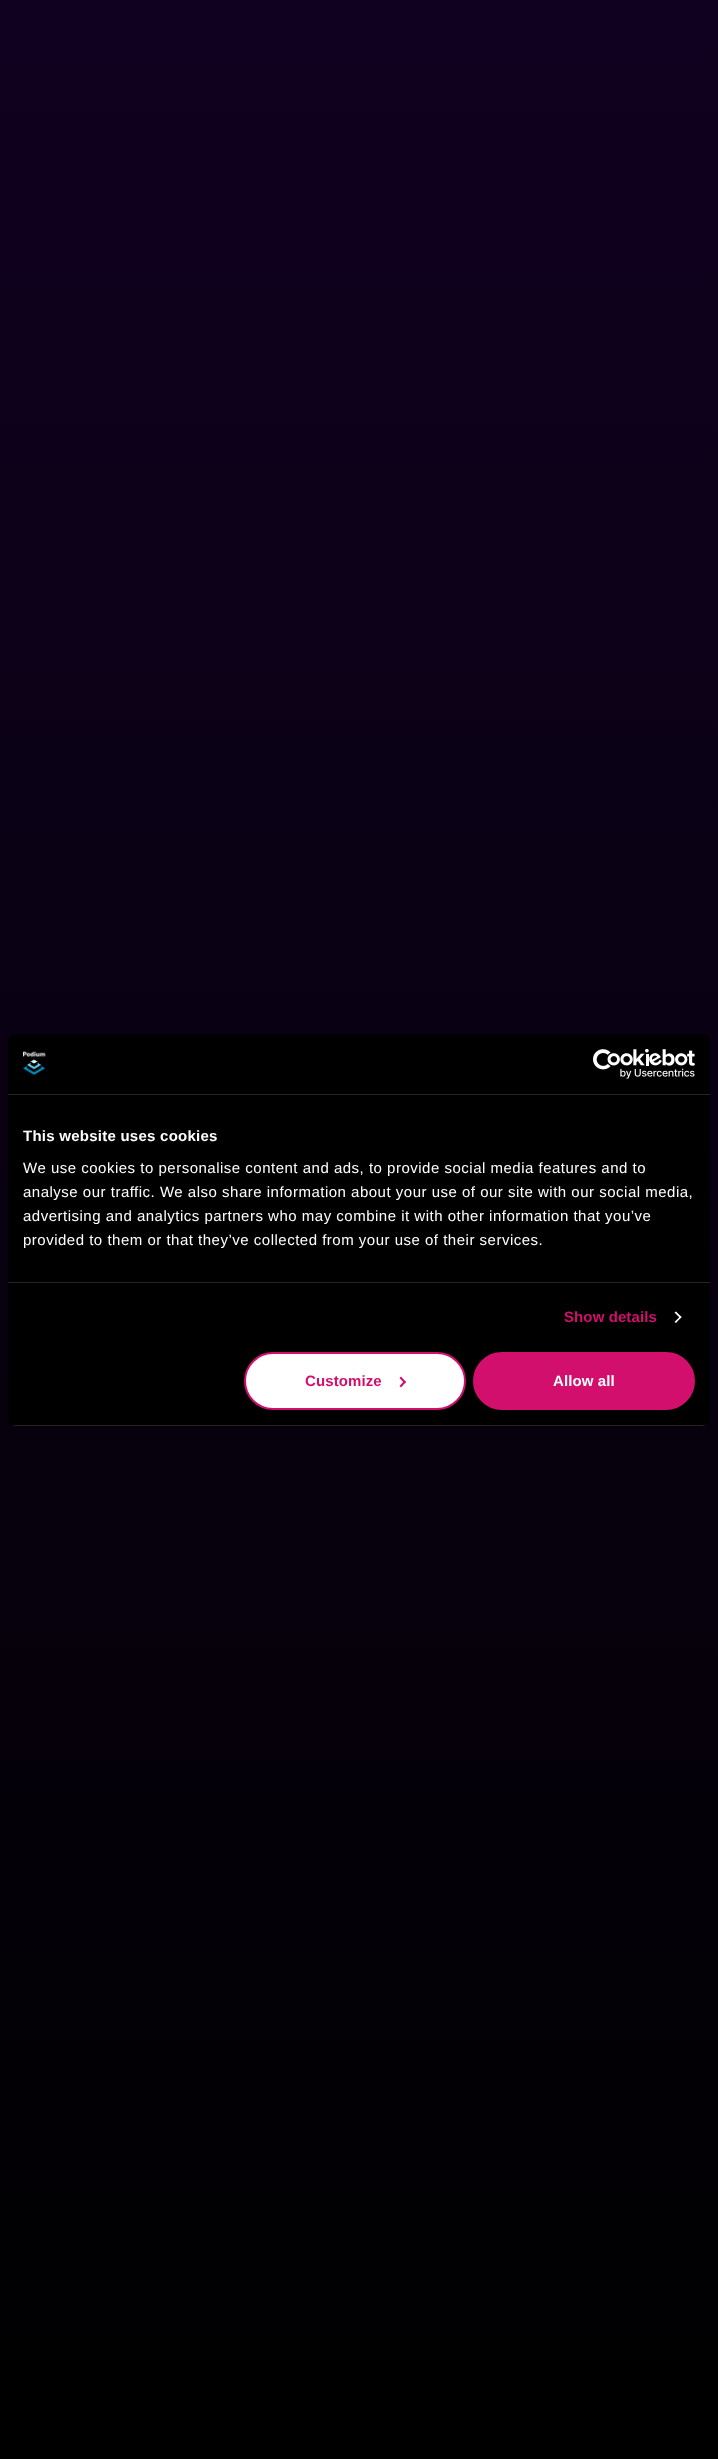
<!DOCTYPE html>
<meta charset="utf-8">
<style>body { margin: 0 } canvas { display: block }</style>
<canvas id="canvas" width="718" height="2459"></canvas>
<img id="img1" src="img_01.png" hidden>
<img id="img2" src="img_02.png" hidden>
<script>
window.onload = function () {
	const canvas = document.getElementById("canvas");
	const ctx = canvas.getContext("2d");
	ctx.miterLimit = 4;
	ctx.fontKerning = "normal";
	function txt(s, x, y) {
		ctx.fillText(s, x, y);
	}
	function fill(x, y, w, h) {
		ctx.fillRect(x, y, w, h);
	}
	function round(x, y, w, h, r) {
		ctx.beginPath();
		ctx.roundRect(x, y, w, h, r);
		ctx.fill();
	}
	function img(id, x, y, w, h) {
		ctx.drawImage(document.getElementById(id), x, y, w, h);
	}
	let gradient;

	ctx.fillStyle = "#FFFFFF";
	fill(0, 0, 718, 2459);
	gradient = ctx.createLinearGradient(359, 2459, 359, 0);
	gradient.addColorStop(0, "#000000");
	gradient.addColorStop(1, "#100120");
	ctx.fillStyle = gradient;
	fill(0, 0, 718, 2459);
	ctx.fillStyle = "#000000";
	round(8, 1034, 702, 392, 8);
	ctx.fillStyle = "#242424";
	fill(8, 1094, 702, 1);
	img("img1", 23, 1051, 23, 24);
	img("img2", 593, 1049, 102, 30);
	fill(8, 1282, 702, 1);
	ctx.fillStyle = "#FFFFFF";
	ctx.beginPath();
	ctx.moveTo(676, 1311.5);
	ctx.lineTo(681.5, 1317);
	ctx.lineTo(680.5, 1318.5);
	ctx.lineTo(674.5, 1312.5);
	ctx.closePath();
	ctx.fill();
	ctx.beginPath();
	ctx.moveTo(680.5, 1316);
	ctx.lineTo(681.5, 1317);
	ctx.lineTo(676, 1323);
	ctx.lineTo(674.5, 1322);
	ctx.closePath();
	ctx.fill();
	ctx.save();
	ctx.beginPath();
	ctx.roundRect(8, 1034, 702, 392, 8);
	ctx.clip();
	ctx.fillStyle = "#242424";
	fill(8, 1425, 702, 1);
	ctx.restore();
	ctx.beginPath();
	ctx.roundRect(245, 1353, 220, 56, 28);
	ctx.fill();
	ctx.strokeStyle = "#D30F6D";
	ctx.lineWidth = 2;
	ctx.stroke();
	ctx.fillStyle = "#D30F6D";
	ctx.beginPath();
	ctx.moveTo(401, 1376.5);
	ctx.lineTo(406, 1382);
	ctx.lineTo(404.5, 1383.5);
	ctx.lineTo(399.5, 1378);
	ctx.closePath();
	ctx.fill();
	ctx.beginPath();
	ctx.moveTo(404.5, 1380.5);
	ctx.lineTo(406, 1382);
	ctx.lineTo(401, 1387.5);
	ctx.lineTo(399.5, 1386);
	ctx.closePath();
	ctx.fill();
	ctx.beginPath();
	ctx.roundRect(474, 1353, 220, 56, 28);
	ctx.fill();
	ctx.stroke();
	ctx.letterSpacing = "0.25px";
	ctx.font = "bold 15px Liberation Sans";
	ctx.fillStyle = "#FFFFFF";
	txt("This website uses cookies", 23, 1141);
	ctx.letterSpacing = "0.5px";
	ctx.font = "15px Liberation Sans";
	txt("We use cookies to personalise content and ads, to provide social media features and to", 23, 1173);
	txt("analyse our traffic. We also share information about your use of our site with our social media,", 23, 1197);
	txt("advertising and analytics partners who may combine it with other information that you’ve", 23, 1221);
	txt("provided to them or that they’ve collected from your use of their services.", 23, 1245);
	ctx.letterSpacing = "0.1px";
	ctx.font = "bold 15px Liberation Sans";
	ctx.fillStyle = "#D30F6D";
	txt("Show details", 564, 1322);
	txt("Customize", 305, 1386);
	ctx.fillStyle = "#FFFFFF";
	txt("Allow all", 553, 1386);
};
</script>
